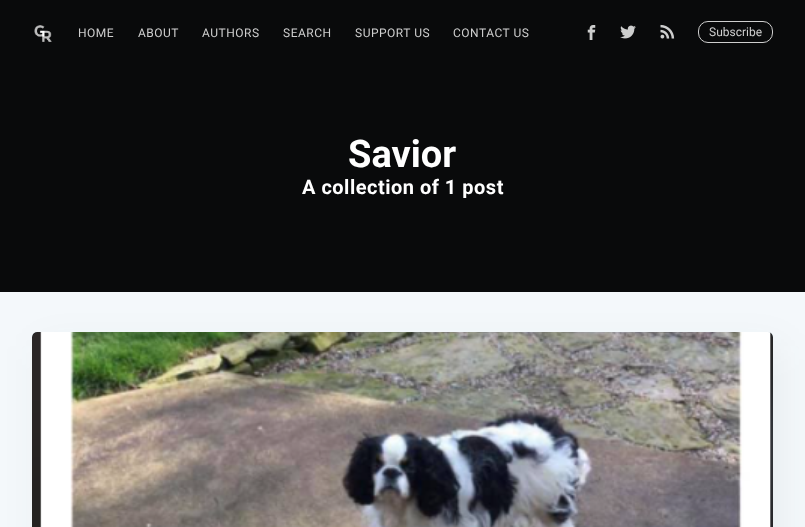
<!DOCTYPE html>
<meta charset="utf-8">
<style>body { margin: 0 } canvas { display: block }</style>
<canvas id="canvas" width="805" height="527"></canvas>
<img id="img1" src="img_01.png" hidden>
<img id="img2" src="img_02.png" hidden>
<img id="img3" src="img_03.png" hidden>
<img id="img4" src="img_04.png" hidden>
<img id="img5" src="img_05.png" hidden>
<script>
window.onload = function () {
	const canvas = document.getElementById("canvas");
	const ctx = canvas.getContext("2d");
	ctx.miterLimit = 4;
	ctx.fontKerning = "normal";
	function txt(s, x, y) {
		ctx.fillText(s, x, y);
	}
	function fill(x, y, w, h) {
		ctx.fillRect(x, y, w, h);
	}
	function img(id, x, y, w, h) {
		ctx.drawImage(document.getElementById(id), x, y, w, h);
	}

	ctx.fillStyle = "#F4F8FB";
	fill(0, 0, 805, 527);
	ctx.fillStyle = "#090A0B";
	fill(0, 0, 805, 292);
	img("img1", 34, 25, 18, 17);
	img("img2", 587, 25, 9, 15);
	img("img3", 620, 25, 16, 14);
	img("img4", 660, 24, 15, 15);
	ctx.beginPath();
	ctx.roundRect(698.5, 21.5, 74, 21, 9.5);
	ctx.strokeStyle = "#CECECE";
	ctx.stroke();
	ctx.fillStyle = "rgba(39, 44, 49, 0.06)";
	ctx.filter = "blur(19px)";
	ctx.beginPath();
	ctx.roundRect(40, 346, 741, 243, 5);
	ctx.fill();
	ctx.filter = "none";
	ctx.fillStyle = "#C5D2D9";
	ctx.beginPath();
	ctx.moveTo(37, 332);
	ctx.lineTo(768, 332);
	ctx.bezierCurveTo(771, 332, 773, 334, 773, 337);
	ctx.lineTo(773, 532);
	ctx.lineTo(32, 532);
	ctx.lineTo(32, 337);
	ctx.bezierCurveTo(32, 334, 34, 332, 37, 332);
	ctx.closePath();
	ctx.fill();
	img("img5", 32, 332, 741, 195);
	ctx.letterSpacing = "0.5px";
	ctx.font = "12px Roboto";
	ctx.fillStyle = "#CECECE";
	txt("HOME", 78, 37);
	txt("ABOUT", 138, 37);
	txt("AUTHORS", 202, 37);
	txt("SEARCH", 283, 37);
	txt("SUPPORT US", 355, 37);
	txt("CONTACT US", 453, 37);
	ctx.letterSpacing = "0px";
	txt("Subscribe", 709, 36);
	ctx.font = "bold 38px Roboto";
	ctx.fillStyle = "#FFFFFF";
	txt("Savior", 348, 167);
	ctx.letterSpacing = "0.5px";
	ctx.font = "bold 20px Roboto";
	txt("A collection of 1 post", 302, 194);
};
</script>
